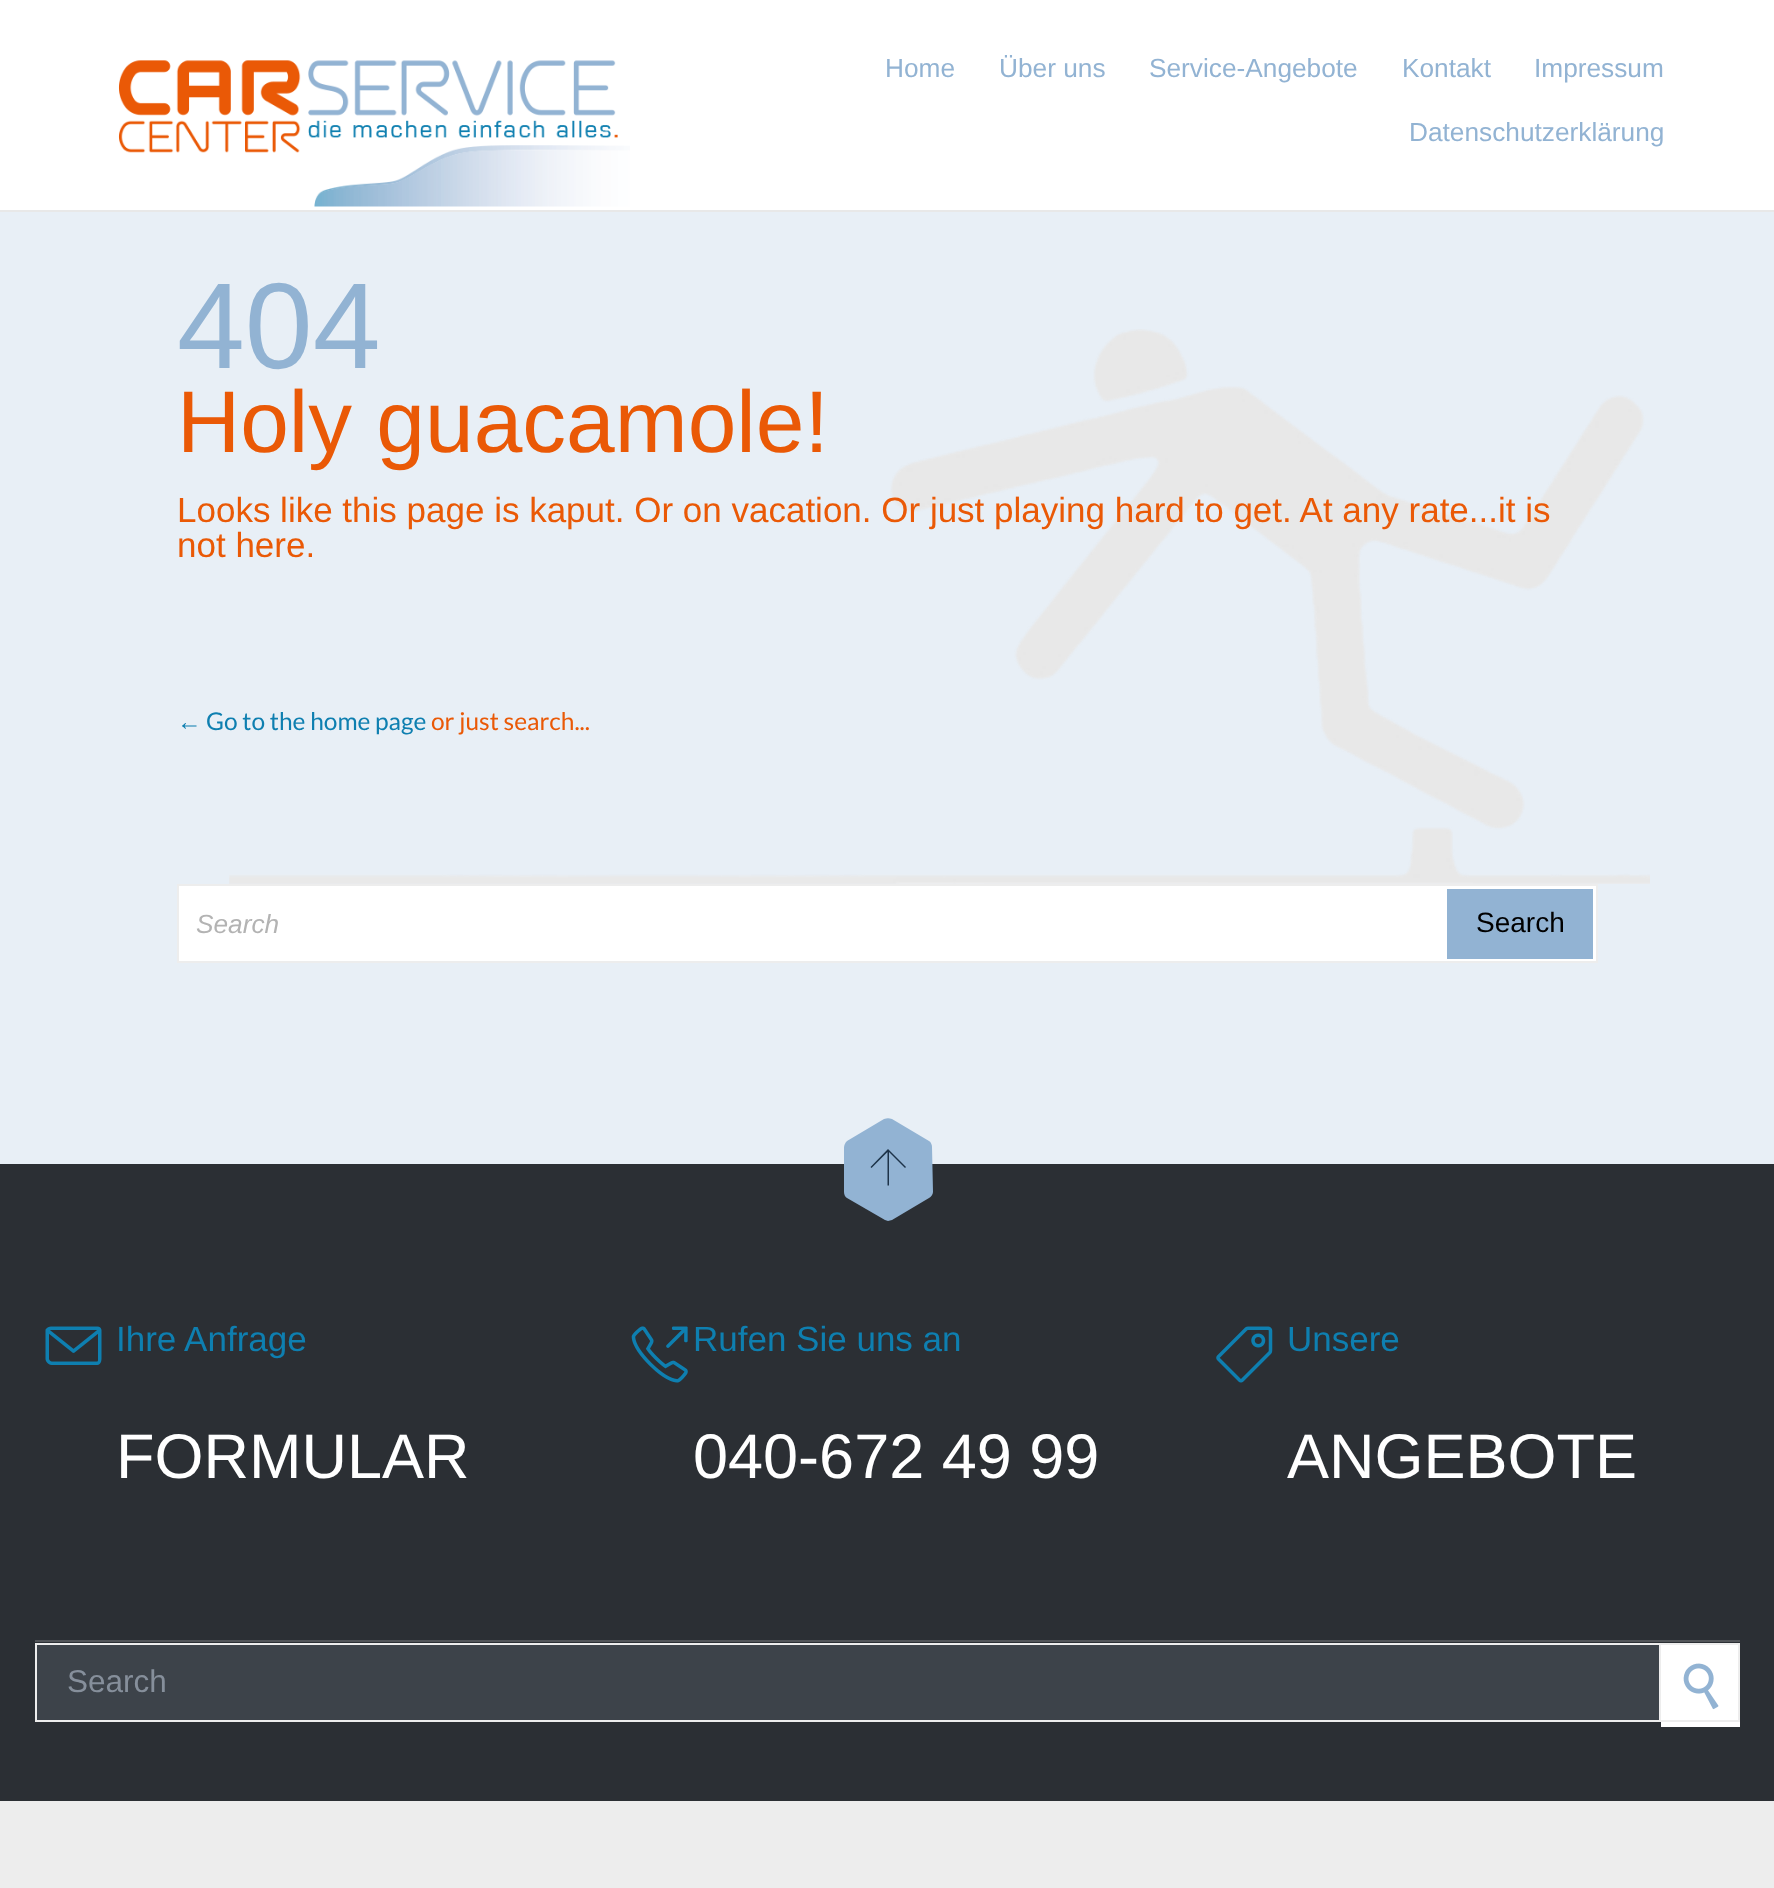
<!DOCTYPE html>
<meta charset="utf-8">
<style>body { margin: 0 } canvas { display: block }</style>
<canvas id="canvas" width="1774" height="1888"></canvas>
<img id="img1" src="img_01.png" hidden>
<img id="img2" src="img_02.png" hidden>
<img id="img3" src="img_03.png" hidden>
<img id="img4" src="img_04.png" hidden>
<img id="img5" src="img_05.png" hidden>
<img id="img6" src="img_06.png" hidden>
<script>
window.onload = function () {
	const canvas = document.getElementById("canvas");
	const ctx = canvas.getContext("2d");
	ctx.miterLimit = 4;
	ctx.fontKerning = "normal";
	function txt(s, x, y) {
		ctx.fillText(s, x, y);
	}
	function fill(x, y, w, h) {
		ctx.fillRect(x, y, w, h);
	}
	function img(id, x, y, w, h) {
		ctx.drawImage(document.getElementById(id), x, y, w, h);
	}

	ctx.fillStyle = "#EDEDED";
	fill(0, 0, 1774, 1888);
	ctx.fillStyle = "#FFFFFF";
	fill(0, 0, 1774, 210);
	ctx.fillStyle = "#E8E8E8";
	fill(0, 210, 1774, 2);
	img("img1", 118, 60, 512, 147);
	ctx.fillStyle = "#E8EFF6";
	fill(0, 212, 1774, 952);
	img("img2", 229, 329, 1421, 555);
	ctx.fillStyle = "#FFFFFF";
	ctx.beginPath();
	ctx.rect(178, 885, 1419, 77);
	ctx.fill();
	ctx.strokeStyle = "#EDEDED";
	ctx.lineWidth = 2;
	ctx.stroke();
	ctx.fillStyle = "#92B3D3";
	fill(1447, 889, 146, 70);
	ctx.fillStyle = "#2B2F34";
	fill(0, 1164, 1774, 637);
	ctx.fillStyle = "#92B3D3";
	ctx.beginPath();
	ctx.moveTo(888, 1221);
	ctx.lineTo(885, 1220);
	ctx.lineTo(847, 1198);
	ctx.bezierCurveTo(845, 1197, 844, 1194, 844, 1192);
	ctx.lineTo(844, 1148);
	ctx.bezierCurveTo(844, 1145, 845, 1143, 847, 1141);
	ctx.lineTo(884, 1119);
	ctx.bezierCurveTo(887, 1118, 889, 1118, 892, 1119);
	ctx.lineTo(929, 1141);
	ctx.bezierCurveTo(931, 1142, 932, 1145, 932, 1147);
	ctx.lineTo(933, 1192);
	ctx.bezierCurveTo(933, 1194, 931, 1197, 929, 1198);
	ctx.lineTo(892, 1220);
	ctx.closePath();
	ctx.fill();
	ctx.fillStyle = "#1D3349";
	ctx.beginPath();
	ctx.moveTo(889, 1150);
	ctx.lineTo(906, 1167);
	ctx.lineTo(905, 1168);
	ctx.lineTo(889, 1152);
	ctx.lineTo(889, 1185.5);
	ctx.lineTo(887.5, 1185.5);
	ctx.lineTo(887.5, 1152);
	ctx.lineTo(871.5, 1168);
	ctx.lineTo(870.5, 1167);
	ctx.lineTo(888, 1149);
	ctx.closePath();
	ctx.fill();
	img("img3", 45, 1326, 57, 39);
	img("img4", 631, 1326, 57, 57);
	img("img5", 1216, 1326, 57, 57);
	ctx.fillStyle = "#525559";
	fill(35, 1640, 1705, 2);
	ctx.fillStyle = "#FFFFFF";
	fill(1661, 1645, 79, 82);
	img("img6", 1683, 1663, 36, 47);
	ctx.strokeRect(1660, 1644, 79, 77);
	ctx.fillStyle = "#3D434A";
	fill(37, 1645, 1622, 75);
	ctx.fillStyle = "#EDEDED";
	fill(35, 1643, 1624, 2);
	fill(35, 1720, 1624, 2);
	fill(35, 1643, 2, 79);
	ctx.font = "26.25px Liberation Sans";
	ctx.fillStyle = "#92B3D3";
	txt("Home", 885, 77);
	txt("Über uns", 999, 77);
	txt("Service-Angebote", 1149, 77);
	txt("Kontakt", 1402, 77);
	txt("Impressum", 1534, 77);
	txt("Datenschutzerklärung", 1409, 141);
	ctx.font = "122px Liberation Sans";
	txt("404", 177, 368);
	ctx.font = "87.5px Liberation Sans";
	ctx.fillStyle = "#EA5906";
	txt("Holy guacamole!", 177, 452);
	ctx.font = "35px Liberation Sans";
	txt("Looks like this page is kaput. Or on vacation. Or just playing hard to get. At any rate...it is", 177, 522);
	txt("not here.", 177, 557);
	ctx.font = "24.5px Liberation Serif";
	ctx.fillStyle = "#0E7FB0";
	txt("←", 177, 730);
	ctx.font = "24.5px Lato";
	txt("Go to the home page", 206, 730);
	ctx.fillStyle = "#EA5906";
	txt("or just search...", 431, 730);
	ctx.font = "italic 26.25px Liberation Sans";
	ctx.fillStyle = "#B3B3B3";
	txt("Search", 196, 933);
	ctx.font = "28px Liberation Sans";
	ctx.fillStyle = "#000000";
	txt("Search", 1476, 932);
	ctx.font = "35px Liberation Sans";
	ctx.fillStyle = "#0E7FB0";
	txt("Ihre Anfrage", 116, 1351);
	ctx.font = "63px Liberation Sans";
	ctx.fillStyle = "#FFFFFF";
	txt("FORMULAR", 116, 1478);
	ctx.font = "35px Liberation Sans";
	ctx.fillStyle = "#0E7FB0";
	txt("Rufen Sie uns an", 693, 1351);
	ctx.font = "63px Liberation Sans";
	ctx.fillStyle = "#FFFFFF";
	txt("040-672 49 99", 693, 1478);
	ctx.font = "35px Liberation Sans";
	ctx.fillStyle = "#0E7FB0";
	txt("Unsere", 1287, 1351);
	ctx.font = "63px Liberation Sans";
	ctx.fillStyle = "#FFFFFF";
	txt("ANGEBOTE", 1287, 1478);
	ctx.font = "31.5px Liberation Sans";
	ctx.fillStyle = "#868F9B";
	txt("Search", 67, 1692);
};
</script>
